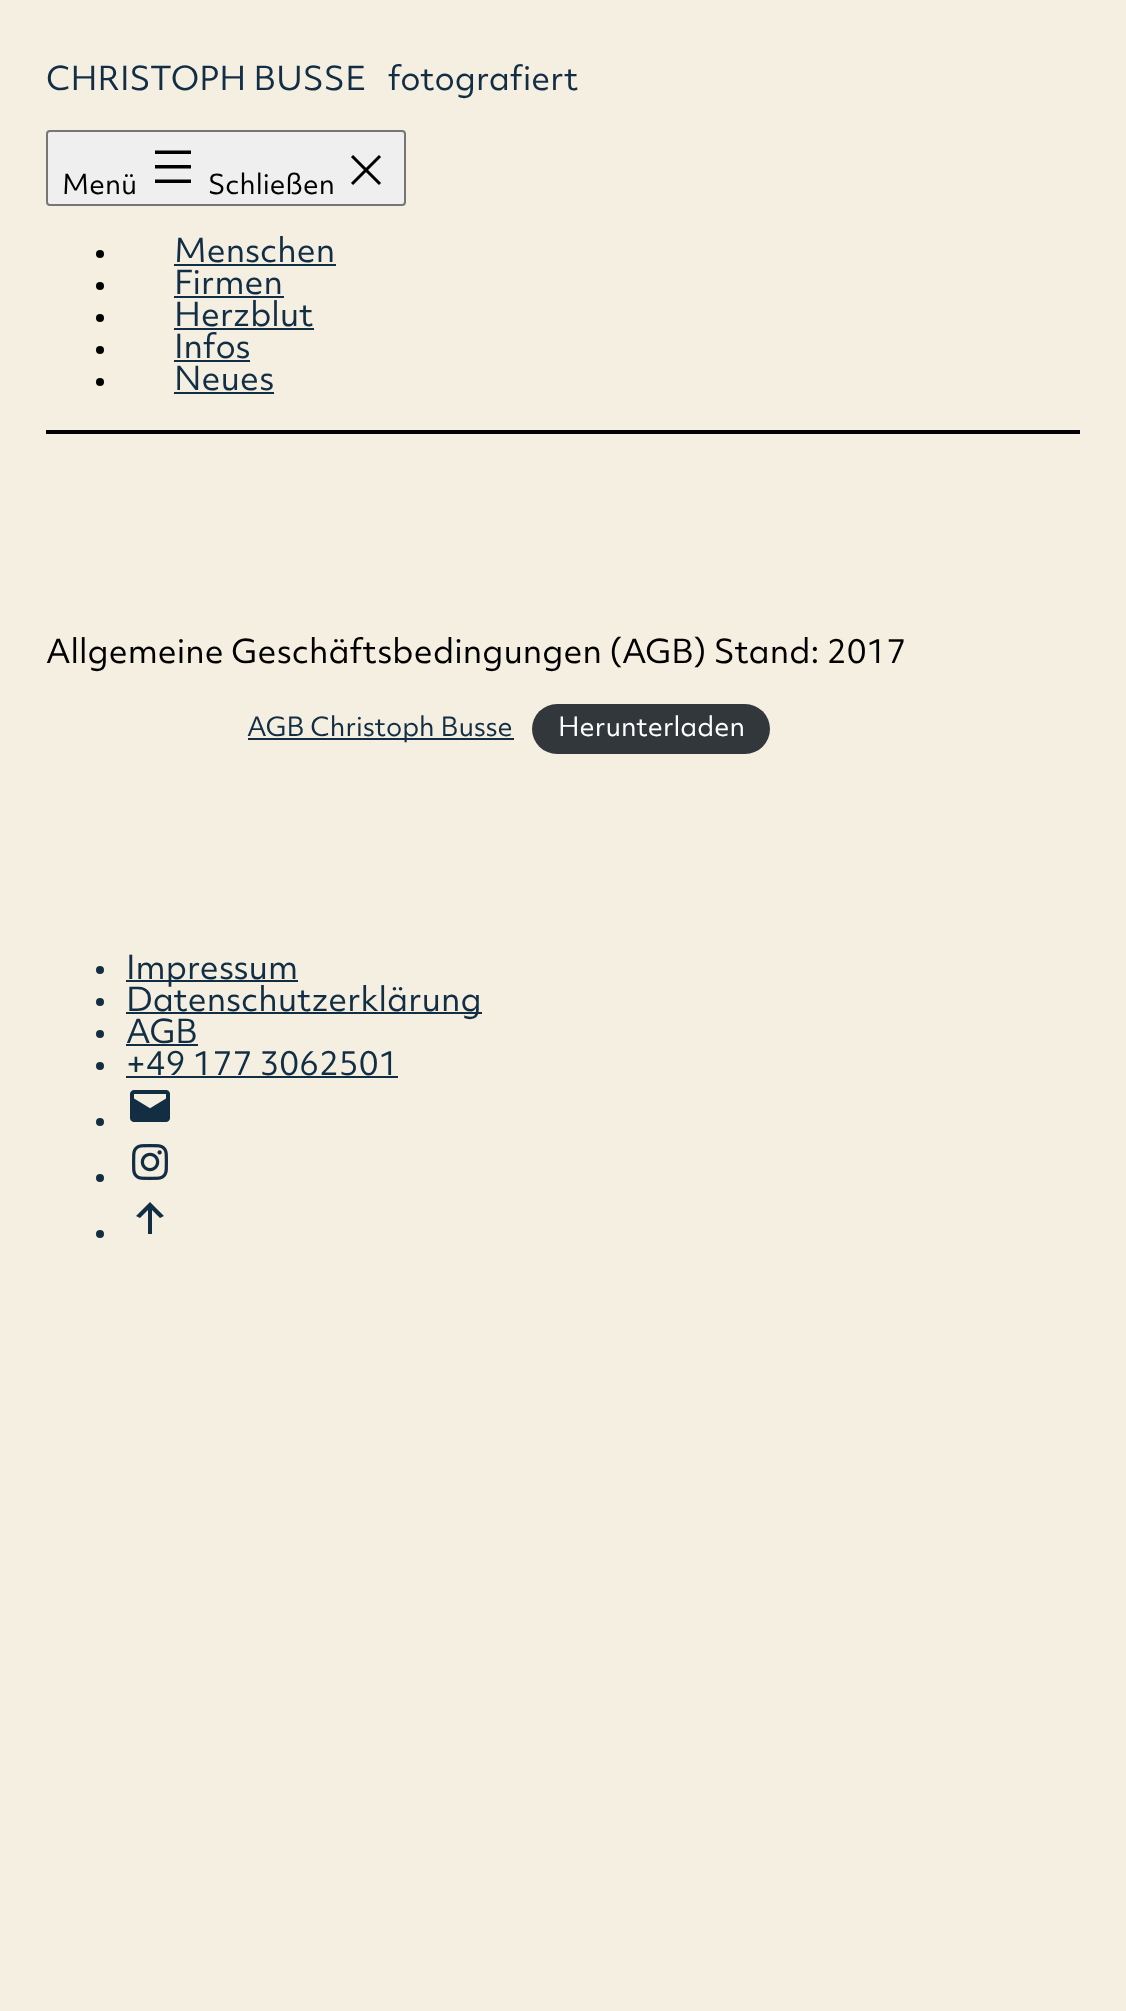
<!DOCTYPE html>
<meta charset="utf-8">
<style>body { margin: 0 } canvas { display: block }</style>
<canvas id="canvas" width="1126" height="2011"></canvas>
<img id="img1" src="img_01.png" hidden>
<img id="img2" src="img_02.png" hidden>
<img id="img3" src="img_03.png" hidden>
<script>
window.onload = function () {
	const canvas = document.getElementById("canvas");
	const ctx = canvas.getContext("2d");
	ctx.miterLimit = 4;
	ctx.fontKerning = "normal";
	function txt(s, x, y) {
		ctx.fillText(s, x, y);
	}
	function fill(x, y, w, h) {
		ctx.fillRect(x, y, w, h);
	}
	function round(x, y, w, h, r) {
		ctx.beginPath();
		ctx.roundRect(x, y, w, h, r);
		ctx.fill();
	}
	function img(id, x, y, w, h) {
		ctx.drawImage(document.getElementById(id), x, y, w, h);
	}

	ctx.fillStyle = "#F5EFE2";
	fill(0, 0, 1126, 2011);
	ctx.fillStyle = "#000000";
	fill(46, 430, 1034, 4);
	ctx.fillStyle = "#EFEFEF";
	ctx.beginPath();
	ctx.roundRect(47, 131, 358, 74, 3);
	ctx.fill();
	ctx.strokeStyle = "#767676";
	ctx.lineWidth = 2;
	ctx.stroke();
	ctx.fillStyle = "#000000";
	ctx.beginPath();
	ctx.moveTo(155, 150.5);
	ctx.lineTo(191, 150.5);
	ctx.lineTo(191, 154);
	ctx.lineTo(155, 154);
	ctx.closePath();
	ctx.moveTo(155, 165);
	ctx.lineTo(191, 165);
	ctx.lineTo(191, 168.5);
	ctx.lineTo(155, 168.5);
	ctx.closePath();
	ctx.moveTo(191, 179.5);
	ctx.lineTo(155, 179.5);
	ctx.lineTo(155, 183);
	ctx.lineTo(191, 183);
	ctx.closePath();
	ctx.fill("evenodd");
	img("img1", 351, 155, 30, 30);
	ctx.beginPath();
	ctx.arc(100, 254, 4, 0, Math.PI * 2);
	ctx.fill();
	ctx.fillStyle = "#122E44";
	fill(174, 264, 162, 2);
	ctx.fillStyle = "#000000";
	ctx.beginPath();
	ctx.arc(100, 286, 4, 0, Math.PI * 2);
	ctx.fill();
	ctx.fillStyle = "#122E44";
	fill(174, 296, 110, 2);
	ctx.fillStyle = "#000000";
	ctx.beginPath();
	ctx.arc(100, 318, 4, 0, Math.PI * 2);
	ctx.fill();
	ctx.fillStyle = "#122E44";
	fill(174, 328, 140, 2);
	ctx.fillStyle = "#000000";
	ctx.beginPath();
	ctx.arc(100, 350, 4, 0, Math.PI * 2);
	ctx.fill();
	ctx.fillStyle = "#122E44";
	fill(174, 360, 76, 2);
	ctx.fillStyle = "#000000";
	ctx.beginPath();
	ctx.arc(100, 382, 4, 0, Math.PI * 2);
	ctx.fill();
	ctx.fillStyle = "#122E44";
	fill(174, 392, 100, 2);
	fill(248, 738, 266, 2);
	ctx.fillStyle = "#32373C";
	round(532, 704, 238, 50, 25);
	ctx.fillStyle = "#132E43";
	ctx.beginPath();
	ctx.arc(100, 970, 4, 0, Math.PI * 2);
	ctx.fill();
	ctx.fillStyle = "#122E44";
	fill(126, 980, 172, 2);
	ctx.fillStyle = "#132E43";
	ctx.beginPath();
	ctx.arc(100, 1002, 4, 0, Math.PI * 2);
	ctx.fill();
	ctx.fillStyle = "#122E44";
	fill(126, 1012, 356, 2);
	ctx.fillStyle = "#132E43";
	ctx.beginPath();
	ctx.arc(100, 1034, 4, 0, Math.PI * 2);
	ctx.fill();
	ctx.fillStyle = "#122E44";
	fill(126, 1044, 72, 2);
	ctx.fillStyle = "#132E43";
	ctx.beginPath();
	ctx.arc(100, 1066, 4, 0, Math.PI * 2);
	ctx.fill();
	ctx.fillStyle = "#122E44";
	fill(126, 1076, 272, 2);
	ctx.fillStyle = "#132E43";
	ctx.beginPath();
	ctx.arc(100, 1122, 4, 0, Math.PI * 2);
	ctx.fill();
	img("img2", 130, 1090, 40, 32);
	ctx.beginPath();
	ctx.arc(100, 1178, 4, 0, Math.PI * 2);
	ctx.fill();
	img("img3", 132, 1144, 36, 36);
	ctx.beginPath();
	ctx.arc(100, 1234, 4, 0, Math.PI * 2);
	ctx.fill();
	ctx.fillStyle = "#122E44";
	ctx.beginPath();
	ctx.moveTo(152, 1234);
	ctx.lineTo(148, 1234);
	ctx.lineTo(148, 1210);
	ctx.lineTo(140, 1218);
	ctx.lineTo(136, 1216);
	ctx.lineTo(150, 1202);
	ctx.lineTo(164, 1216);
	ctx.lineTo(160, 1218);
	ctx.lineTo(152, 1210);
	ctx.closePath();
	ctx.fill("evenodd");
	ctx.font = "32px 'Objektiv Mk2'";
	txt("CHRISTOPH BUSSE   fotografiert", 46, 90);
	ctx.font = "26.5px 'Objektiv Mk2'";
	ctx.fillStyle = "#000000";
	txt("Menü", 62, 194);
	txt("Schließen", 208, 194);
	ctx.font = "32px 'Objektiv Mk2'";
	ctx.fillStyle = "#122E44";
	txt("Menschen", 174, 262);
	txt("Firmen", 174, 294);
	txt("Herzblut", 174, 326);
	txt("Infos", 174, 358);
	txt("Neues", 174, 390);
	ctx.fillStyle = "#000000";
	txt("Allgemeine Geschäftsbedingungen (AGB) Stand: 2017", 46, 663);
	ctx.font = "25.6px 'Objektiv Mk2'";
	ctx.fillStyle = "#122E44";
	txt("AGB Christoph Busse", 247, 736);
	ctx.fillStyle = "#FFFFFF";
	txt("Herunterladen", 558, 736);
	ctx.font = "32px 'Objektiv Mk2'";
	ctx.fillStyle = "#122E44";
	txt("Impressum", 126, 979);
	txt("Datenschutzerklärung", 126, 1011);
	txt("AGB", 126, 1043);
	txt("+49 177 3062501", 126, 1075);
};
</script>
